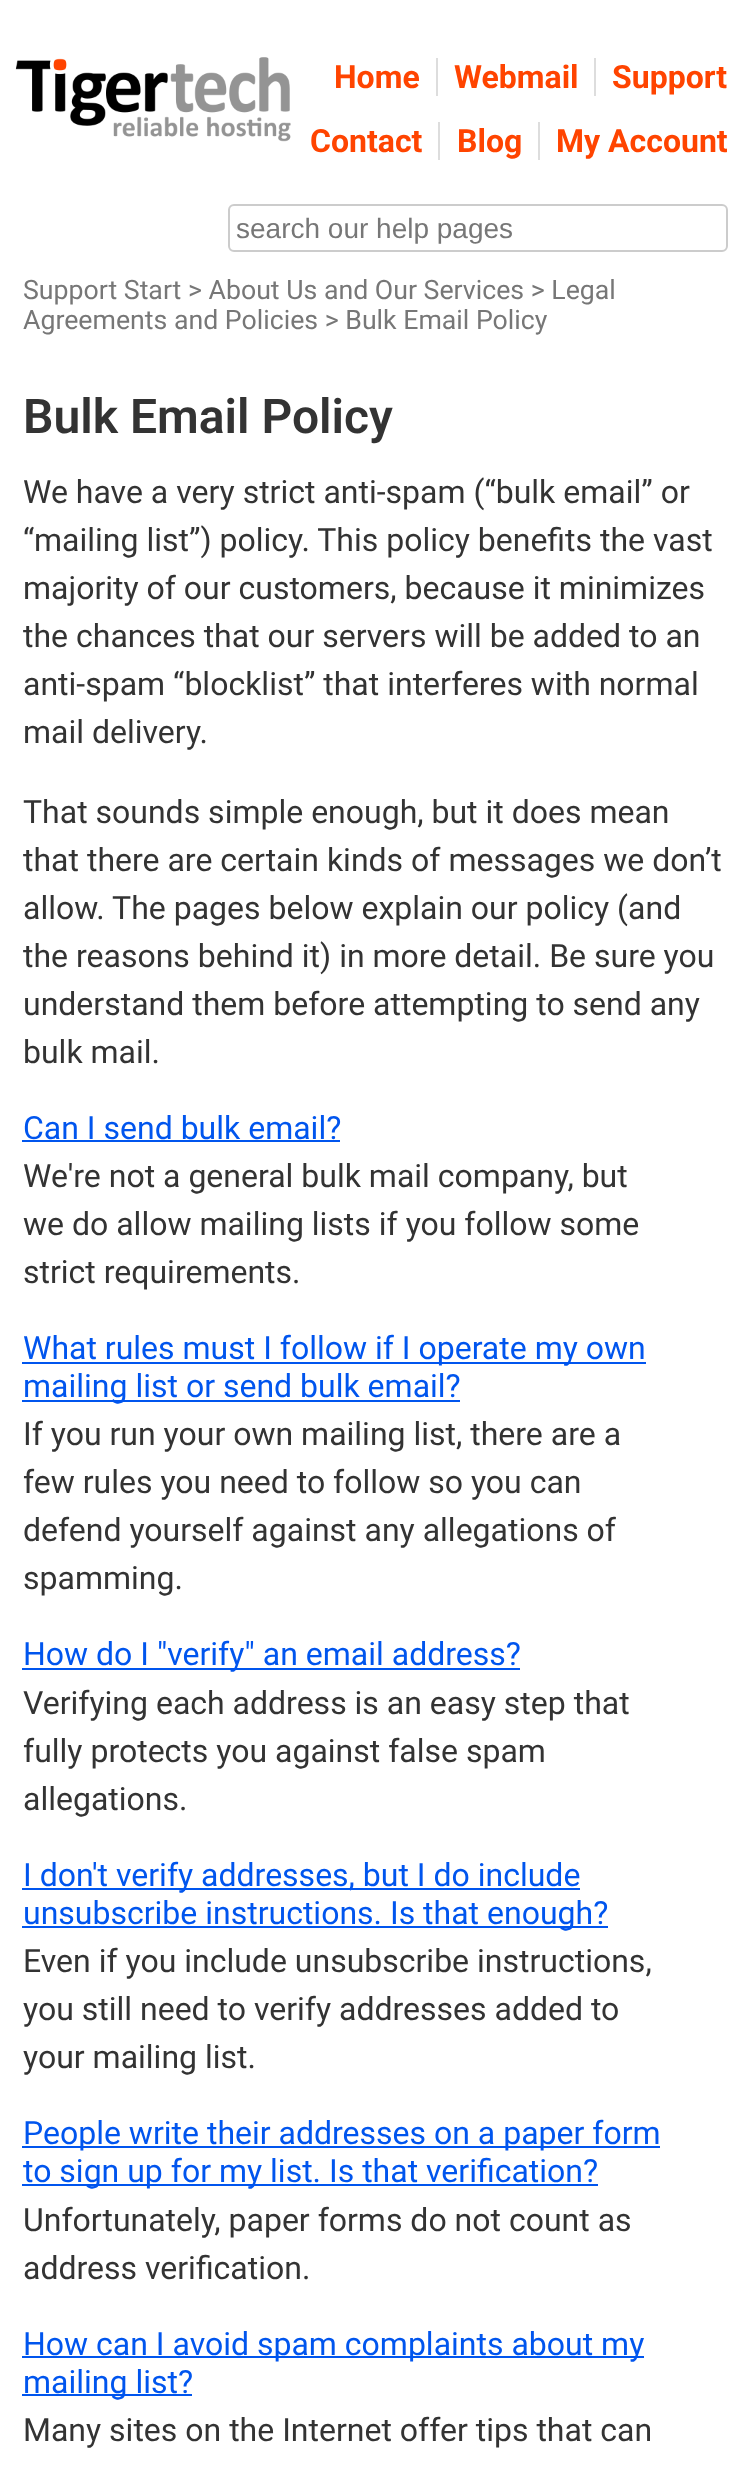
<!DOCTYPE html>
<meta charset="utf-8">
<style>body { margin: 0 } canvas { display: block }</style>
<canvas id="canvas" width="750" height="2477"></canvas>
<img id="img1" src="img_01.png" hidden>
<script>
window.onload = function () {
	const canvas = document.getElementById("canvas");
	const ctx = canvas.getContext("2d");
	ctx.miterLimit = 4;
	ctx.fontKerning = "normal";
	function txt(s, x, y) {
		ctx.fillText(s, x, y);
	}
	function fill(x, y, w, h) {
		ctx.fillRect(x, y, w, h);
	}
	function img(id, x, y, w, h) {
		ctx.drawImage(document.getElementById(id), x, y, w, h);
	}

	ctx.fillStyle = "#FFFFFF";
	fill(0, 0, 750, 2477);
	img("img1", 15, 57, 276, 85);
	ctx.fillStyle = "#DDDDDD";
	fill(436, 58, 2, 38);
	fill(594, 58, 2, 38);
	fill(438, 122, 2, 38);
	fill(538, 122, 2, 38);
	ctx.beginPath();
	ctx.roundRect(229, 205, 498, 46, 5);
	ctx.strokeStyle = "#CCCCCC";
	ctx.lineWidth = 2;
	ctx.stroke();
	ctx.fillStyle = "#0055EE";
	fill(22, 1140, 318, 2);
	fill(22, 1362, 624, 2);
	fill(22, 1400, 438, 2);
	fill(22, 1668, 498, 2);
	fill(22, 1888, 558, 2);
	fill(22, 1926, 586, 2);
	fill(22, 2146, 638, 2);
	fill(22, 2184, 576, 2);
	fill(22, 2356, 622, 2);
	fill(22, 2394, 170, 2);
	ctx.font = "bold 32px Roboto";
	ctx.fillStyle = "#FF4400";
	txt("Home", 334, 88);
	txt("Webmail", 454, 88);
	txt("Support", 612, 88);
	txt("Contact", 310, 152);
	txt("Blog", 457, 152);
	txt("My Account", 556, 152);
	ctx.font = "28px Liberation Sans";
	ctx.fillStyle = "#777777";
	txt("search our help pages", 236, 238);
	ctx.font = "26.7px Roboto";
	txt("Support Start > About Us and Our Services > Legal", 23, 299);
	txt("Agreements and Policies > Bulk Email Policy", 23, 329);
	ctx.font = "600 48px Roboto";
	ctx.fillStyle = "#333333";
	txt("Bulk Email Policy", 23, 433);
	ctx.font = "32px Roboto";
	txt("We have a very strict anti-spam (“bulk email” or", 23, 503);
	txt("“mailing list”) policy. This policy benefits the vast", 23, 551);
	txt("majority of our customers, because it minimizes", 23, 599);
	txt("the chances that our servers will be added to an", 23, 647);
	txt("anti-spam “blocklist” that interferes with normal", 23, 695);
	txt("mail delivery.", 23, 743);
	txt("That sounds simple enough, but it does mean", 23, 823);
	txt("that there are certain kinds of messages we don’t", 23, 871);
	txt("allow. The pages below explain our policy (and", 23, 919);
	txt("the reasons behind it) in more detail. Be sure you", 23, 967);
	txt("understand them before attempting to send any", 23, 1015);
	txt("bulk mail.", 23, 1063);
	ctx.fillStyle = "#0055EE";
	txt("Can I send bulk email?", 23, 1139);
	ctx.fillStyle = "#333333";
	txt("We're not a general bulk mail company, but", 23, 1187);
	txt("we do allow mailing lists if you follow some", 23, 1235);
	txt("strict requirements.", 23, 1283);
	ctx.fillStyle = "#0055EE";
	txt("What rules must I follow if I operate my own", 23, 1359);
	txt("mailing list or send bulk email?", 23, 1397);
	ctx.fillStyle = "#333333";
	txt("If you run your own mailing list, there are a", 23, 1445);
	txt("few rules you need to follow so you can", 23, 1493);
	txt("defend yourself against any allegations of", 23, 1541);
	txt("spamming.", 23, 1589);
	ctx.fillStyle = "#0055EE";
	txt("How do I \"verify\" an email address?", 23, 1665);
	ctx.fillStyle = "#333333";
	txt("Verifying each address is an easy step that", 23, 1714);
	txt("fully protects you against false spam", 23, 1762);
	txt("allegations.", 23, 1810);
	ctx.fillStyle = "#0055EE";
	txt("I don't verify addresses, but I do include", 23, 1886);
	txt("unsubscribe instructions. Is that enough?", 23, 1924);
	ctx.fillStyle = "#333333";
	txt("Even if you include unsubscribe instructions,", 23, 1972);
	txt("you still need to verify addresses added to", 23, 2020);
	txt("your mailing list.", 23, 2068);
	ctx.fillStyle = "#0055EE";
	txt("People write their addresses on a paper form", 23, 2144);
	txt("to sign up for my list. Is that verification?", 23, 2182);
	ctx.fillStyle = "#333333";
	txt("Unfortunately, paper forms do not count as", 23, 2231);
	txt("address verification.", 23, 2279);
	ctx.fillStyle = "#0055EE";
	txt("How can I avoid spam complaints about my", 23, 2355);
	txt("mailing list?", 23, 2393);
	ctx.fillStyle = "#333333";
	txt("Many sites on the Internet offer tips that can", 23, 2441);
};
</script>
